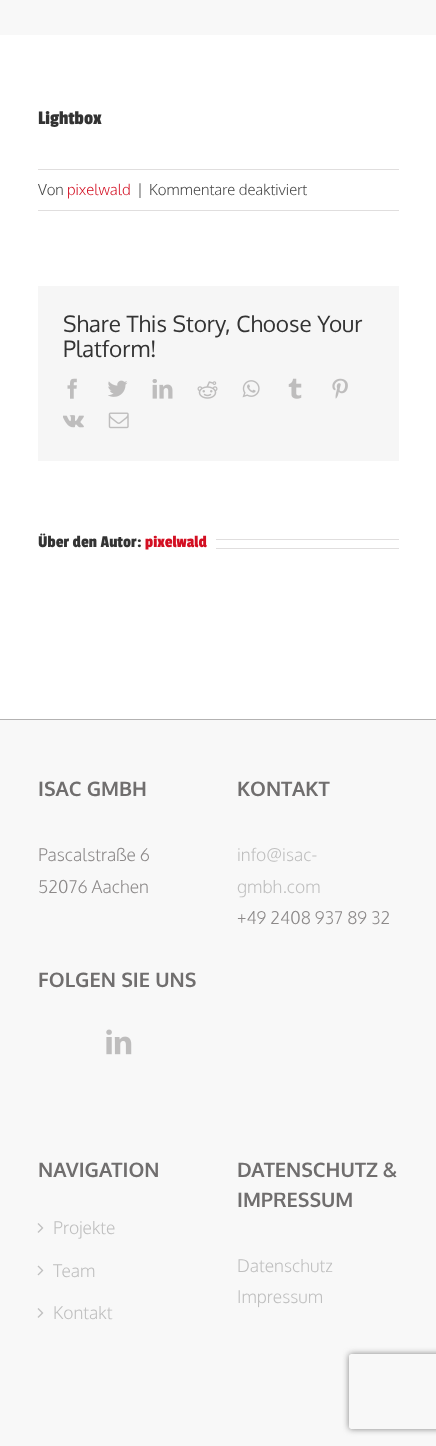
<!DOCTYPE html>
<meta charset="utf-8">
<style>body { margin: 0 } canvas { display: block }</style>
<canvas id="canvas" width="436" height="1446"></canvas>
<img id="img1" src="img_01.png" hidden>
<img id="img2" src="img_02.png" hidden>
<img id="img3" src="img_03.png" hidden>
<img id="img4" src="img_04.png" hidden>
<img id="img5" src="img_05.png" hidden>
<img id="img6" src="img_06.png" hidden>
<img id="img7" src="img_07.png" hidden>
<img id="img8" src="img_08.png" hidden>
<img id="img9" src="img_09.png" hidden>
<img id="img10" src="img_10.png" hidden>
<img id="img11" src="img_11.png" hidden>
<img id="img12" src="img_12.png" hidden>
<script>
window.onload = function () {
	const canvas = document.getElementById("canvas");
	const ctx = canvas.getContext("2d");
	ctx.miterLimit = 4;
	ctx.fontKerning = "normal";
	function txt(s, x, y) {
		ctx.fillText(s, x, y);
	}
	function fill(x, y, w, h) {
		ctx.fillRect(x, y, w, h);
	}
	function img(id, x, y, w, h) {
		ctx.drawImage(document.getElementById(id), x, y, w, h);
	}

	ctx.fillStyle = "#FFFFFF";
	fill(0, 0, 436, 1446);
	ctx.fillStyle = "#F8F8F8";
	fill(0, 0, 436, 35);
	ctx.fillStyle = "#E0DEDE";
	fill(38, 169, 361, 1);
	fill(38, 210, 361, 1);
	ctx.fillStyle = "#F6F6F6";
	fill(38, 286, 361, 175);
	img("img1", 67, 378, 10, 21);
	img("img2", 108, 380, 20, 17);
	img("img3", 152, 379, 21, 20);
	img("img4", 197, 381, 21, 18);
	img("img5", 242, 380, 18, 18);
	img("img6", 288, 378, 14, 21);
	img("img7", 332, 378, 16, 21);
	img("img8", 63, 415, 21, 13);
	img("img9", 108, 412, 21, 17);
	ctx.fillStyle = "#E0DEDE";
	fill(216, 539, 183, 1);
	fill(216, 548, 183, 1);
	ctx.fillStyle = "#F8F8F8";
	fill(0, 720, 436, 726);
	ctx.fillStyle = "#B3B2B2";
	fill(0, 719, 436, 1);
	img("img10", 106, 1029, 26, 26);
	img("img11", 37, 1223, 7, 10);
	img("img12", 37, 1265, 7, 11);
	img("img11", 37, 1308, 7, 10);
	ctx.save();
	ctx.beginPath();
	ctx.moveTo(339, 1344);
	ctx.lineTo(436, 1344);
	ctx.lineTo(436, 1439);
	ctx.lineTo(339, 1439);
	ctx.closePath();
	ctx.moveTo(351.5, 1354);
	ctx.lineTo(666.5, 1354);
	ctx.bezierCurveTo(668, 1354, 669, 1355, 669, 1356.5);
	ctx.lineTo(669, 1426.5);
	ctx.bezierCurveTo(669, 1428, 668, 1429, 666.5, 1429);
	ctx.lineTo(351.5, 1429);
	ctx.bezierCurveTo(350, 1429, 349, 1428, 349, 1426.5);
	ctx.lineTo(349, 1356.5);
	ctx.bezierCurveTo(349, 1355, 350, 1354, 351.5, 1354);
	ctx.closePath();
	ctx.clip("evenodd");
	ctx.fillStyle = "#808080";
	ctx.filter = "blur(3px)";
	ctx.beginPath();
	ctx.roundRect(349, 1354, 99, 75, 2.5);
	ctx.fill();
	ctx.filter = "none";
	ctx.restore();
	ctx.font = "20px Passion One";
	ctx.fillStyle = "#333333";
	txt("Lightbox", 38, 124);
	ctx.font = "300 15px Oxygen";
	ctx.fillStyle = "#484848";
	txt("Von", 38, 195);
	ctx.fillStyle = "#D31023";
	txt("pixelwald", 67, 195);
	ctx.fillStyle = "#484848";
	txt("|", 137, 195);
	txt("Kommentare deaktiviert", 149, 195);
	ctx.font = "22.5px Oxygen";
	ctx.fillStyle = "#333333";
	txt("Share This Story, Choose Your", 63, 332);
	txt("Platform!", 63, 357);
	ctx.font = "17.5px Passion One";
	txt("Über den Autor:", 38, 547);
	ctx.fillStyle = "#D31023";
	txt("pixelwald", 145, 547);
	ctx.font = "bold 20px Oxygen";
	ctx.fillStyle = "#706E6E";
	txt("ISAC GMBH", 38, 796);
	ctx.font = "300 17.5px Oxygen";
	ctx.fillStyle = "#8C8989";
	txt("Pascalstraße 6", 38, 861);
	txt("52076 Aachen", 38, 893);
	ctx.font = "bold 20px Oxygen";
	ctx.fillStyle = "#706E6E";
	txt("FOLGEN SIE UNS", 38, 987);
	txt("KONTAKT", 237, 796);
	ctx.font = "300 17.5px Oxygen";
	ctx.fillStyle = "#BFBFBF";
	txt("info@isac-", 237, 861);
	txt("gmbh.com", 237, 893);
	ctx.fillStyle = "#8C8989";
	txt("+49 2408 937 89 32", 237, 924);
	ctx.font = "bold 20px Oxygen";
	ctx.fillStyle = "#706E6E";
	txt("NAVIGATION", 38, 1177);
	ctx.font = "300 17.5px Oxygen";
	ctx.fillStyle = "#BFBFBF";
	txt("Projekte", 53, 1234);
	txt("Team", 53, 1277);
	txt("Kontakt", 53, 1319);
	ctx.font = "bold 20px Oxygen";
	ctx.fillStyle = "#706E6E";
	txt("DATENSCHUTZ &", 237, 1177);
	txt("IMPRESSUM", 237, 1207);
	ctx.font = "300 17.5px Oxygen";
	ctx.fillStyle = "#BFBFBF";
	txt("Datenschutz", 237, 1272);
	txt("Impressum", 237, 1303);
};
</script>
